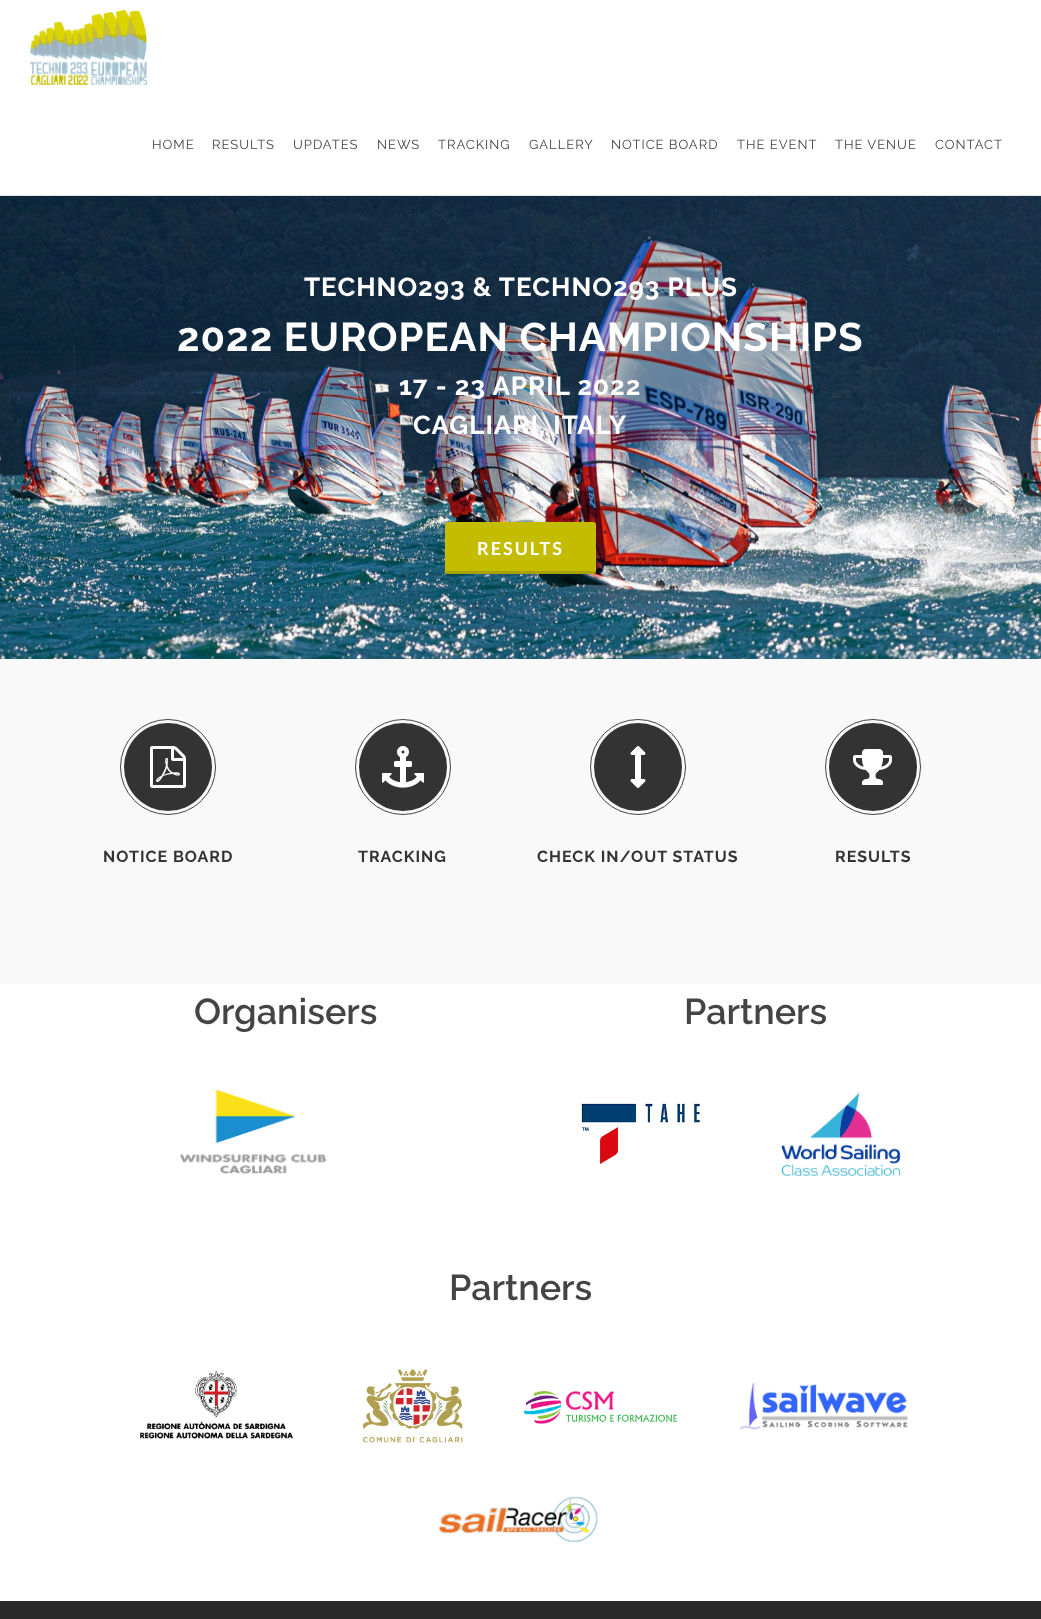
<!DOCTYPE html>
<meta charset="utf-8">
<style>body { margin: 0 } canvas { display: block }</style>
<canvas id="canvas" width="1041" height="1619"></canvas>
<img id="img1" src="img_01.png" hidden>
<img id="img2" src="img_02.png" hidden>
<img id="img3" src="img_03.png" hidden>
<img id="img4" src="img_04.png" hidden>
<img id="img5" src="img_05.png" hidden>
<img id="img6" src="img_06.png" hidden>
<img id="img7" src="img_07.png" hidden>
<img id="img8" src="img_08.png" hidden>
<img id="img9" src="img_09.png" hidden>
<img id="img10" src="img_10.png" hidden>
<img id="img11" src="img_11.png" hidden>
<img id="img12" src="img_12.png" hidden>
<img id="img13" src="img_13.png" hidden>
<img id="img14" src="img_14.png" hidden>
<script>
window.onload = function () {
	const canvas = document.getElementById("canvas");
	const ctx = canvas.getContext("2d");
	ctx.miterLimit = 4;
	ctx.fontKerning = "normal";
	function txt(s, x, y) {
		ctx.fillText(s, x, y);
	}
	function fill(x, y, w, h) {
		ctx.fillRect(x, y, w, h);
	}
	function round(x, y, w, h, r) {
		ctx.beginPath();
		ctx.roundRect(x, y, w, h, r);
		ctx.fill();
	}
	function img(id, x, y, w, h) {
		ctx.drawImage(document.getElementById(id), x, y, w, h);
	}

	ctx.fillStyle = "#FFFFFF";
	fill(0, 0, 1041, 1619);
	ctx.fillStyle = "#E6E6E6";
	fill(0, 195, 1041, 1);
	img("img1", 30, 10, 117, 75);
	img("img2", 0, 196, 1041, 463);
	ctx.fillStyle = "#C4BC00";
	round(445, 522, 151, 52, 3);
	ctx.fillStyle = "rgba(0, 0, 0, 0.15)";
	fill(447, 571, 148, 3);
	ctx.fillStyle = "#F9F9F9";
	fill(0, 659, 1041, 325);
	ctx.beginPath();
	ctx.arc(168, 767, 47.5, 0, Math.PI * 2);
	ctx.strokeStyle = "#444444";
	ctx.stroke();
	ctx.fillStyle = "#333333";
	ctx.beginPath();
	ctx.arc(168, 767, 44, 0, Math.PI * 2);
	ctx.fill();
	img("img3", 150, 746, 36, 42);
	ctx.beginPath();
	ctx.arc(403, 767, 47.5, 0, Math.PI * 2);
	ctx.stroke();
	ctx.beginPath();
	ctx.arc(403, 767, 44, 0, Math.PI * 2);
	ctx.fill();
	img("img4", 382, 746, 42, 42);
	ctx.beginPath();
	ctx.arc(638, 767, 47.5, 0, Math.PI * 2);
	ctx.stroke();
	ctx.beginPath();
	ctx.arc(638, 767, 44, 0, Math.PI * 2);
	ctx.fill();
	img("img5", 630, 746, 16, 42);
	ctx.beginPath();
	ctx.arc(873, 767, 47.5, 0, Math.PI * 2);
	ctx.stroke();
	ctx.beginPath();
	ctx.arc(873, 767, 44, 0, Math.PI * 2);
	ctx.fill();
	img("img6", 853, 749, 39, 36);
	img("img7", 180, 1089, 147, 85);
	img("img8", 581, 1103, 119, 62);
	img("img9", 781, 1092, 120, 85);
	img("img10", 140, 1370, 153, 69);
	img("img11", 362, 1369, 101, 74);
	img("img12", 523, 1391, 155, 33);
	img("img13", 740, 1382, 168, 48);
	img("img14", 438, 1496, 160, 47);
	ctx.fillStyle = "#292929";
	fill(0, 1601, 1041, 18);
	ctx.letterSpacing = "1px";
	ctx.font = "13px Raleway";
	ctx.fillStyle = "#444444";
	txt("HOME", 152, 149);
	txt("RESULTS", 212, 149);
	txt("UPDATES", 293, 149);
	txt("NEWS", 377, 149);
	txt("TRACKING", 438, 149);
	txt("GALLERY", 529, 149);
	txt("NOTICE BOARD", 611, 149);
	txt("THE EVENT", 737, 149);
	txt("THE VENUE", 835, 149);
	txt("CONTACT", 935, 149);
	ctx.font = "bold 26px Raleway";
	ctx.fillStyle = "#FFFFFF";
	txt("TECHNO293 & TECHNO293 PLUS", 304, 296);
	ctx.font = "bold 40px Raleway";
	txt("2022 EUROPEAN CHAMPIONSHIPS", 177, 351);
	ctx.font = "bold 26px Raleway";
	txt("17 - 23 APRIL 2022", 399, 395);
	txt("CAGLIARI, ITALY", 413, 434);
	ctx.letterSpacing = "2px";
	ctx.font = "bold 18px Lato";
	txt("RESULTS", 477, 555);
	ctx.letterSpacing = "1px";
	ctx.font = "bold 16px Raleway";
	ctx.fillStyle = "#333333";
	txt("NOTICE BOARD", 103, 862);
	txt("TRACKING", 358, 862);
	txt("CHECK IN/OUT STATUS", 537, 862);
	txt("RESULTS", 835, 862);
	ctx.letterSpacing = "0px";
	ctx.font = "600 36px Raleway";
	ctx.fillStyle = "#444444";
	txt("Organisers", 194, 1024);
	txt("Partners", 684, 1024);
	txt("Partners", 449, 1300);
};
</script>
